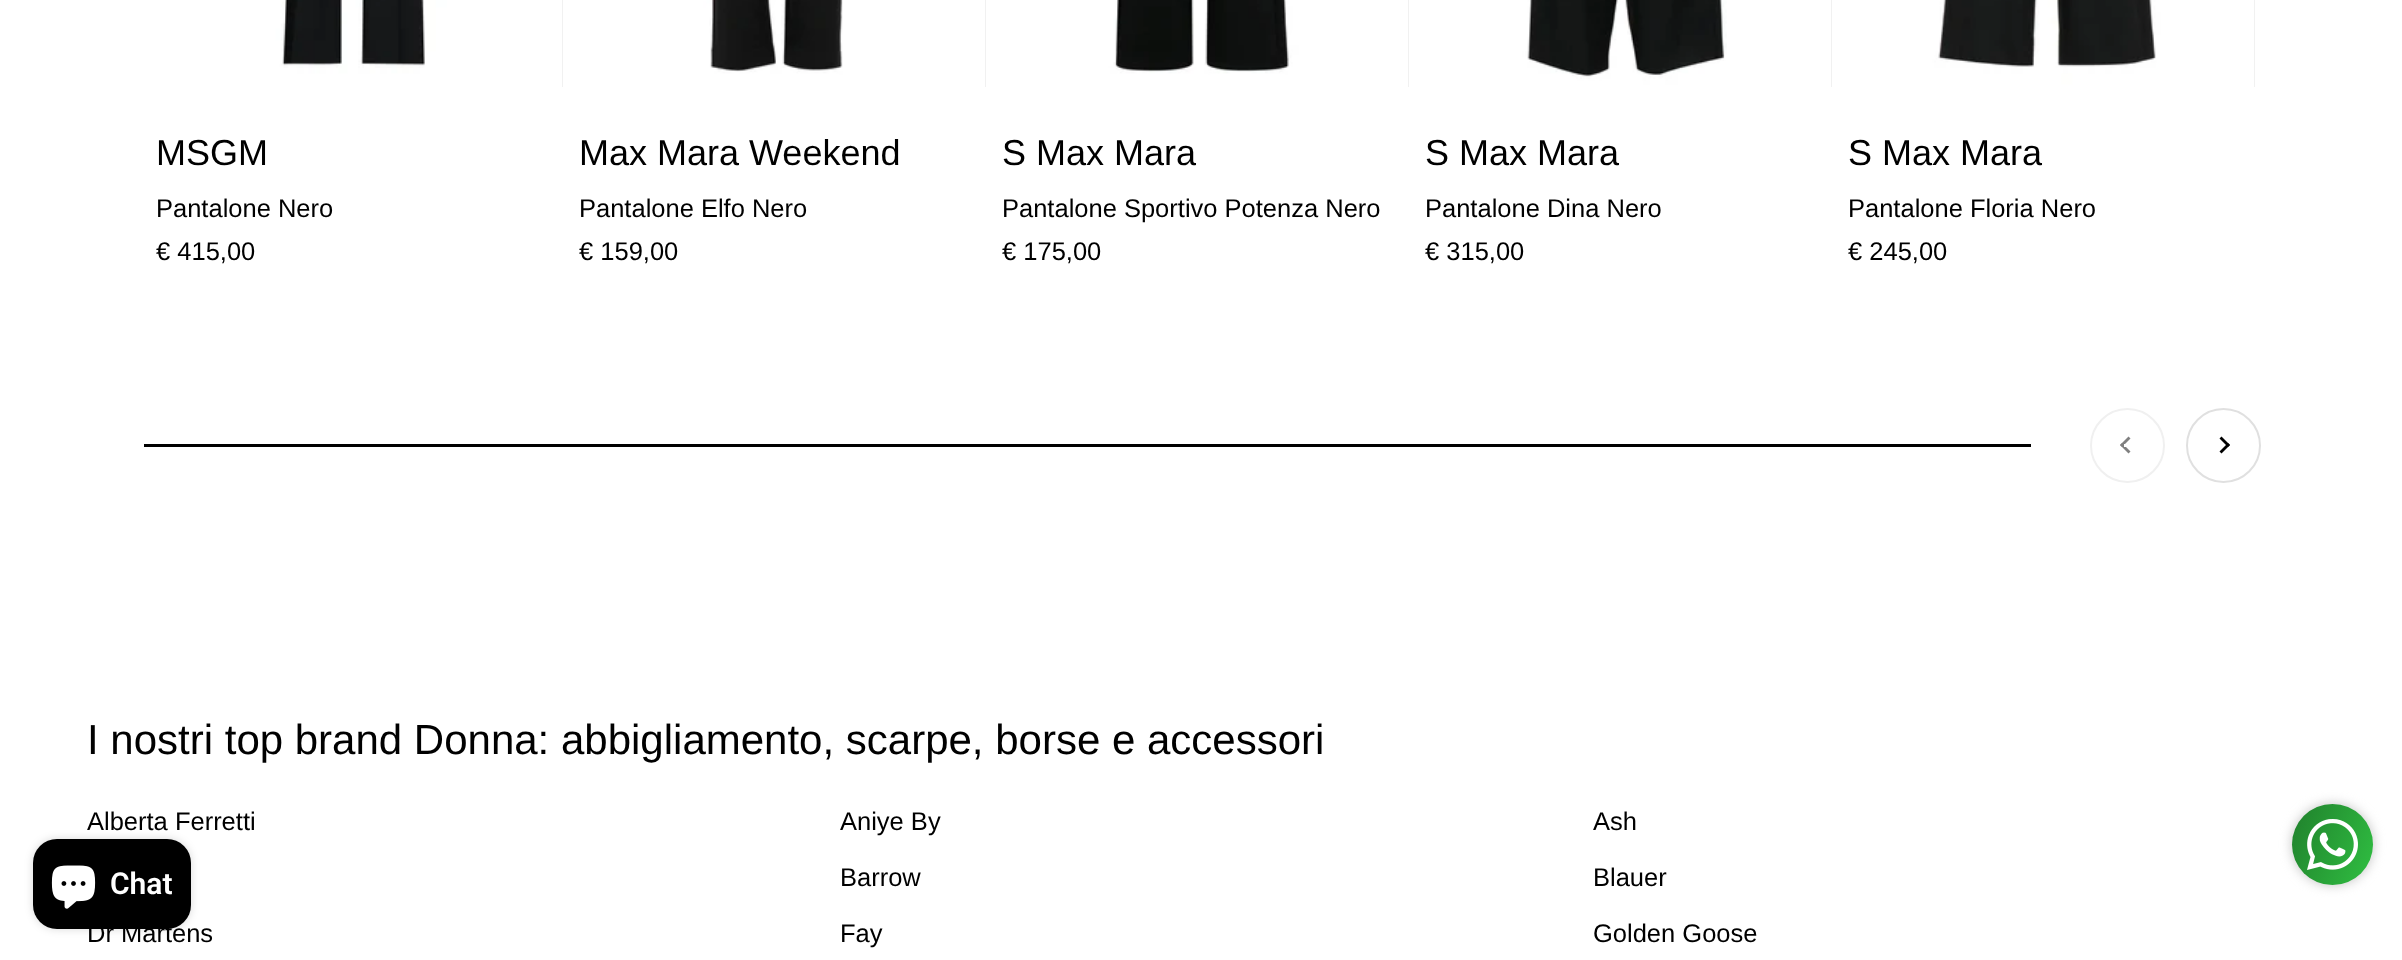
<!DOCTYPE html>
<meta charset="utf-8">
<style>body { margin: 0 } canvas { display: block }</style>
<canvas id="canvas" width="2402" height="960"></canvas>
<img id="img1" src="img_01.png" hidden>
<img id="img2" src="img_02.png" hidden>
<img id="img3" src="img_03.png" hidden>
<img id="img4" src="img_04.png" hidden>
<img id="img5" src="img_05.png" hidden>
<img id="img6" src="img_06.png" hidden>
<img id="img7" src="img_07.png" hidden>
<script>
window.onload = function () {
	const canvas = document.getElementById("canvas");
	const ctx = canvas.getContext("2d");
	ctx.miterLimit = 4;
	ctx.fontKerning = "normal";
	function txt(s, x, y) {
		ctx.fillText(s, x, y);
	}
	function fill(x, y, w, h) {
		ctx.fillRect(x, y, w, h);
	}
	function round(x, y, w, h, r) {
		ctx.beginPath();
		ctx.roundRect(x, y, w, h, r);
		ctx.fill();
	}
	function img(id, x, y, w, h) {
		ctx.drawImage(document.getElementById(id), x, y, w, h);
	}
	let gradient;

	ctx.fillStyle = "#FFFFFF";
	fill(0, 0, 2402, 960);
	ctx.fillStyle = "#EDEDED";
	fill(562, 0, 1, 87);
	img("img1", 149, 0, 414, 87);
	fill(985, 0, 1, 87);
	img("img2", 572, 0, 414, 87);
	fill(1408, 0, 1, 87);
	img("img3", 995, 0, 414, 87);
	fill(1831, 0, 1, 87);
	img("img4", 1418, 0, 414, 87);
	fill(2254, 0, 1, 87);
	img("img5", 1841, 0, 414, 87);
	ctx.fillStyle = "#000000";
	fill(144, 444, 1887, 3);
	ctx.beginPath();
	ctx.arc(2127.5, 445.5, 36.5, 0, Math.PI * 2);
	ctx.strokeStyle = "#F0F0F0";
	ctx.lineWidth = 2;
	ctx.stroke();
	ctx.fillStyle = "#808080";
	ctx.beginPath();
	ctx.moveTo(2128.5, 453.5);
	ctx.lineTo(2120, 445);
	ctx.lineTo(2122, 443);
	ctx.lineTo(2130.5, 451.5);
	ctx.closePath();
	ctx.fill();
	ctx.beginPath();
	ctx.moveTo(2122, 447);
	ctx.lineTo(2120, 445);
	ctx.lineTo(2128.5, 436.5);
	ctx.lineTo(2130.5, 438.5);
	ctx.closePath();
	ctx.fill();
	ctx.fillStyle = "#FFFFFF";
	fill(2124, 444, 8, 3);
	ctx.beginPath();
	ctx.arc(2223.5, 445.5, 36.5, 0, Math.PI * 2);
	ctx.strokeStyle = "#E0E0E0";
	ctx.stroke();
	ctx.fillStyle = "#000000";
	ctx.beginPath();
	ctx.moveTo(2221.5, 436.5);
	ctx.lineTo(2230, 445);
	ctx.lineTo(2228, 447);
	ctx.lineTo(2219.5, 438.5);
	ctx.closePath();
	ctx.fill();
	ctx.beginPath();
	ctx.moveTo(2228, 443);
	ctx.lineTo(2230, 445);
	ctx.lineTo(2221.5, 453.5);
	ctx.lineTo(2219.5, 451.5);
	ctx.closePath();
	ctx.fill();
	ctx.fillStyle = "#C2C2C2";
	ctx.filter = "blur(6px)";
	ctx.beginPath();
	ctx.roundRect(2292, 804, 81, 81, 40.5);
	ctx.fill();
	ctx.filter = "none";
	gradient = ctx.createLinearGradient(2284, 824, 2381, 865);
	gradient.addColorStop(0, "#20802C");
	gradient.addColorStop(0, "#20802C");
	gradient.addColorStop(1, "#30BF42");
	ctx.fillStyle = gradient;
	ctx.beginPath();
	ctx.arc(2332.5, 844.5, 40.5, 0, Math.PI * 2);
	ctx.fill();
	img("img6", 2307, 819, 51, 51);
	ctx.fillStyle = "rgba(0, 0, 0, 0.15)";
	ctx.filter = "blur(4px)";
	ctx.beginPath();
	ctx.roundRect(33, 839, 158, 90, 24);
	ctx.fill();
	ctx.filter = "none";
	ctx.fillStyle = "#000000";
	round(33, 839, 158, 90, 24);
	img("img7", 51, 865, 45, 44);
	ctx.font = "36px Liberation Sans";
	txt("MSGM", 156, 165);
	ctx.font = "25.5px Liberation Sans";
	txt("Pantalone Nero", 156, 217);
	txt("€ 415,00", 156, 260);
	ctx.font = "36px Liberation Sans";
	txt("Max Mara Weekend", 579, 165);
	ctx.font = "25.5px Liberation Sans";
	txt("Pantalone Elfo Nero", 579, 217);
	txt("€ 159,00", 579, 260);
	ctx.font = "36px Liberation Sans";
	txt("S Max Mara", 1002, 165);
	ctx.font = "25.5px Liberation Sans";
	txt("Pantalone Sportivo Potenza Nero", 1002, 217);
	txt("€ 175,00", 1002, 260);
	ctx.font = "36px Liberation Sans";
	txt("S Max Mara", 1425, 165);
	ctx.font = "25.5px Liberation Sans";
	txt("Pantalone Dina Nero", 1425, 217);
	txt("€ 315,00", 1425, 260);
	ctx.font = "36px Liberation Sans";
	txt("S Max Mara", 1848, 165);
	ctx.font = "25.5px Liberation Sans";
	txt("Pantalone Floria Nero", 1848, 217);
	txt("€ 245,00", 1848, 260);
	ctx.font = "42px Liberation Sans";
	txt("I nostri top brand Donna: abbigliamento, scarpe, borse e accessori", 87, 754);
	ctx.font = "25.5px Liberation Sans";
	txt("Alberta Ferretti", 87, 830);
	txt("Aniye By", 840, 830);
	txt("Ash", 1593, 830);
	txt("Barrow", 840, 886);
	txt("Blauer", 1593, 886);
	txt("Dr Martens", 87, 942);
	txt("Fay", 840, 942);
	txt("Golden Goose", 1593, 942);
	ctx.font = "600 30px Roboto";
	ctx.fillStyle = "#FFFFFF";
	txt("Chat", 110, 894);
};
</script>
